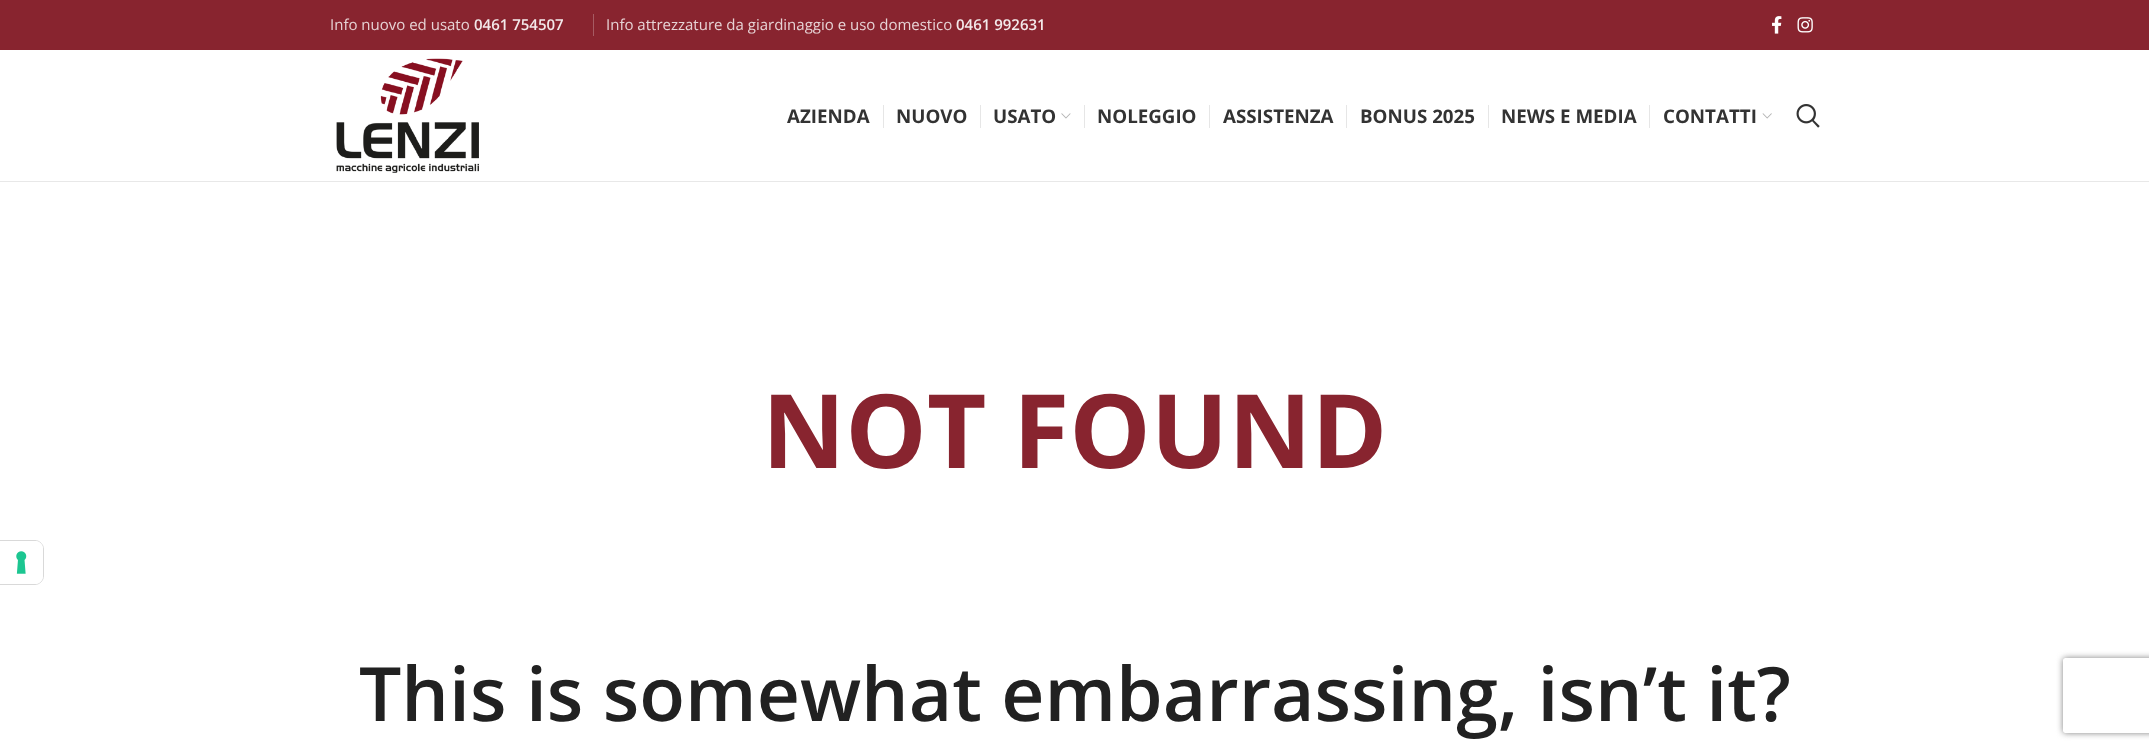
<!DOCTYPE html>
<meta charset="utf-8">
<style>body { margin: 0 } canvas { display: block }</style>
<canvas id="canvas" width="2149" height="750"></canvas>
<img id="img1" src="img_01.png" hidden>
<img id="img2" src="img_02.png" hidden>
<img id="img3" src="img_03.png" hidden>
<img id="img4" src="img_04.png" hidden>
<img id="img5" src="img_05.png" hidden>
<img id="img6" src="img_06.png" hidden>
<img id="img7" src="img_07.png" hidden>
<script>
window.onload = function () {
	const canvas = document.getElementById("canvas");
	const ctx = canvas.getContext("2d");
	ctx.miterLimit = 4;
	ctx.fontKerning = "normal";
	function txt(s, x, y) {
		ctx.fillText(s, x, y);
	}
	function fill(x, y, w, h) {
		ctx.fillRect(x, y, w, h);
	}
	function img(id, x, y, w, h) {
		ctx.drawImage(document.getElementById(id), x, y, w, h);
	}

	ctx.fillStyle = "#FFFFFF";
	fill(0, 0, 2149, 750);
	ctx.beginPath();
	ctx.moveTo(-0.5, 540.5);
	ctx.lineTo(35, 540.5);
	ctx.bezierCurveTo(39.5, 540.5, 43.5, 544.5, 43.5, 549);
	ctx.lineTo(43.5, 576);
	ctx.bezierCurveTo(43.5, 580.5, 39.5, 584.5, 35, 584.5);
	ctx.lineTo(-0.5, 584.5);
	ctx.closePath();
	ctx.strokeStyle = "#D9D9D9";
	ctx.stroke();
	ctx.beginPath();
	ctx.roundRect(0, 541, 43, 43, [0, 8, 8, 0]);
	ctx.fill();
	img("img1", 16, 551, 11, 23);
	ctx.fillStyle = "#88242F";
	fill(0, 0, 2149, 50);
	ctx.fillStyle = "#A65B63";
	fill(593, 14, 1, 22);
	img("img2", 1772, 16, 10, 18);
	img("img3", 1797, 17, 16, 16);
	ctx.fillStyle = "#E8E8E8";
	fill(0, 181, 2149, 1);
	img("img4", 336, 58, 143, 115);
	ctx.fillStyle = "#E6E6E6";
	fill(883, 105, 1, 23);
	fill(980, 105, 1, 23);
	img("img5", 1061, 113, 10, 6);
	fill(1084, 105, 1, 23);
	fill(1209, 105, 1, 23);
	fill(1346, 105, 1, 23);
	fill(1488, 105, 1, 23);
	fill(1649, 105, 1, 23);
	img("img6", 1762, 113, 10, 6);
	img("img7", 1796, 104, 24, 24);
	ctx.save();
	ctx.beginPath();
	ctx.moveTo(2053, 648);
	ctx.lineTo(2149, 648);
	ctx.lineTo(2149, 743);
	ctx.lineTo(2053, 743);
	ctx.closePath();
	ctx.moveTo(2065.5, 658);
	ctx.lineTo(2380.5, 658);
	ctx.bezierCurveTo(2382, 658, 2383, 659, 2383, 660.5);
	ctx.lineTo(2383, 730.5);
	ctx.bezierCurveTo(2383, 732, 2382, 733, 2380.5, 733);
	ctx.lineTo(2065.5, 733);
	ctx.bezierCurveTo(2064, 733, 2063, 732, 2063, 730.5);
	ctx.lineTo(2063, 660.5);
	ctx.bezierCurveTo(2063, 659, 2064, 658, 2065.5, 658);
	ctx.closePath();
	ctx.clip("evenodd");
	ctx.fillStyle = "#808080";
	ctx.filter = "blur(3px)";
	ctx.beginPath();
	ctx.roundRect(2063, 658, 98, 75, 2.5);
	ctx.fill();
	ctx.filter = "none";
	ctx.restore();
	ctx.font = "15px Open Sans";
	ctx.fillStyle = "#E7D3D5";
	txt("Info nuovo ed usato", 330, 30);
	ctx.font = "600 15px Open Sans";
	ctx.fillStyle = "#F3E9EA";
	txt("0461 754507", 474, 30);
	ctx.font = "15px Open Sans";
	ctx.fillStyle = "#E7D3D5";
	txt("Info attrezzature da giardinaggio e uso domestico", 606, 30);
	ctx.font = "600 15px Open Sans";
	ctx.fillStyle = "#F3E9EA";
	txt("0461 992631", 956, 30);
	ctx.font = "bold 18.75px Open Sans";
	ctx.fillStyle = "#333333";
	txt("AZIENDA", 787, 123);
	txt("NUOVO", 896, 123);
	txt("USATO", 993, 123);
	txt("NOLEGGIO", 1097, 123);
	txt("ASSISTENZA", 1223, 123);
	txt("BONUS 2025", 1360, 123);
	txt("NEWS E MEDIA", 1501, 123);
	txt("CONTATTI", 1663, 123);
	ctx.font = "bold 102.5px Open Sans";
	ctx.fillStyle = "#88242F";
	txt("NOT FOUND", 762, 468);
	ctx.font = "600 75px Open Sans";
	ctx.fillStyle = "#212121";
	txt("This is somewhat embarrassing, isn’t it?", 359, 721);
};
</script>
